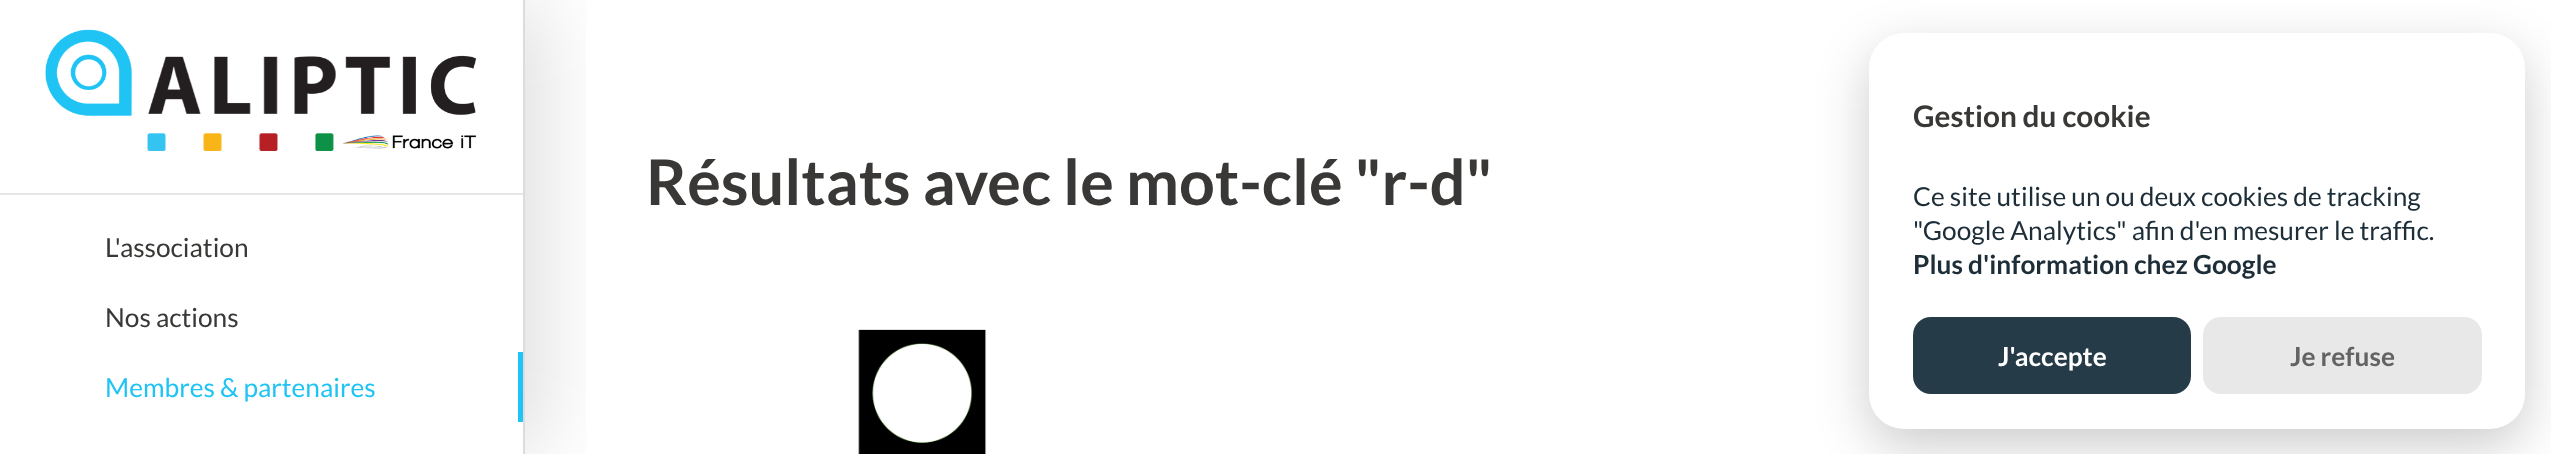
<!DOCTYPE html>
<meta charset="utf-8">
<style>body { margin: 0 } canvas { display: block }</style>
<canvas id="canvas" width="2551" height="454"></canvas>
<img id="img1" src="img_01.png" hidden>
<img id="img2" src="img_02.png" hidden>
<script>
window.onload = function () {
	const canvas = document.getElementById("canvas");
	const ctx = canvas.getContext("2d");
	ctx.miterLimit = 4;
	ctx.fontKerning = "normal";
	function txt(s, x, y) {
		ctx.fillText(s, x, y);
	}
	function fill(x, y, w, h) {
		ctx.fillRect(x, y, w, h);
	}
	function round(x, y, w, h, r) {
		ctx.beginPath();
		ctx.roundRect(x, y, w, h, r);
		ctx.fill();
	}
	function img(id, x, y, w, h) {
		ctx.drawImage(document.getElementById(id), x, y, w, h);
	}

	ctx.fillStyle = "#FFFFFF";
	fill(0, 0, 2551, 454);
	img("img1", 858, 329, 129, 125);
	ctx.save();
	ctx.beginPath();
	ctx.rect(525, 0, 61, 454);
	ctx.clip();
	ctx.fillStyle = "rgba(0, 0, 0, 0.14)";
	ctx.filter = "blur(44px)";
	ctx.beginPath();
	ctx.rect(21, 4, 518, 448);
	ctx.fill();
	ctx.filter = "none";
	ctx.restore();
	ctx.fillStyle = "#DCDCDC";
	fill(523, 0, 2, 454);
	img("img2", 45, 29, 432, 122);
	ctx.fillStyle = "#E6E6E6";
	fill(0, 193, 523, 2);
	ctx.fillStyle = "#1FC4F4";
	fill(518, 352, 5, 70);
	ctx.fillStyle = "rgba(2, 2, 3, 0.2)";
	ctx.filter = "blur(26px)";
	ctx.beginPath();
	ctx.roundRect(1869, 51, 656, 395, 35);
	ctx.fill();
	ctx.filter = "none";
	ctx.fillStyle = "#FFFFFF";
	round(1869, 33, 656, 396, 35);
	ctx.fillStyle = "#253B48";
	round(1913, 317, 278, 77, 18);
	ctx.fillStyle = "#E8E8E8";
	round(2203, 317, 279, 77, 18);
	ctx.font = "bold 63px Lato";
	ctx.fillStyle = "#393836";
	txt("Résultats avec le mot-clé \"r-d\"", 646, 205);
	ctx.font = "26.25px Lato";
	txt("L'association", 105, 257);
	txt("Nos actions", 105, 327);
	ctx.fillStyle = "#1FC4F4";
	txt("Membres & partenaires", 105, 397);
	ctx.font = "bold 29.75px Lato";
	ctx.fillStyle = "#393836";
	txt("Gestion du cookie", 1913, 127);
	ctx.font = "26.25px Lato";
	ctx.fillStyle = "#1D2E38";
	txt("Ce site utilise un ou deux cookies de tracking", 1913, 206);
	txt("\"Google Analytics\" afin d'en mesurer le traffic.", 1913, 240);
	ctx.font = "bold 26.25px Lato";
	txt("Plus d'information chez Google", 1913, 274);
	ctx.fillStyle = "#FFFFFF";
	txt("J'accepte", 1998, 366);
	ctx.fillStyle = "#636363";
	txt("Je refuse", 2290, 366);
};
</script>
